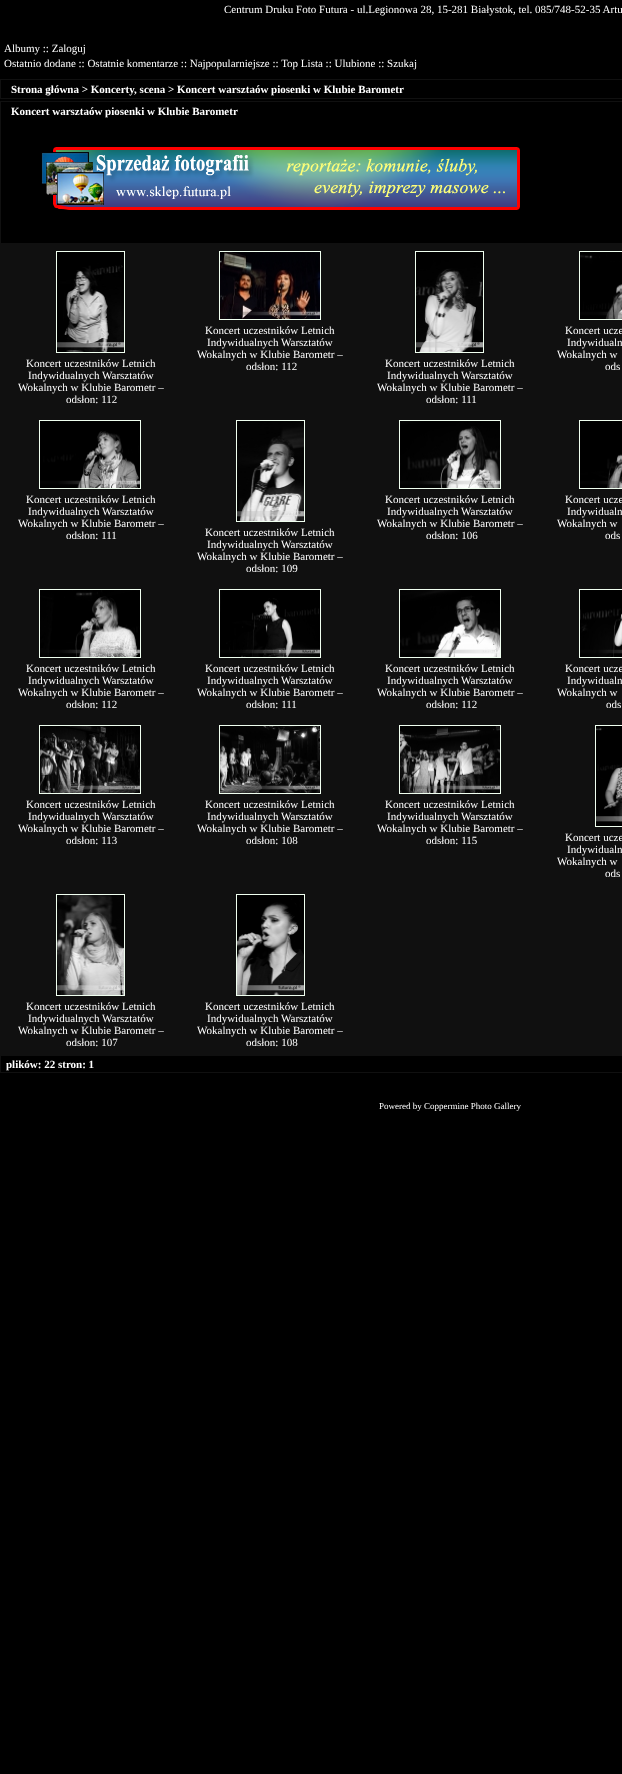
<!DOCTYPE html>
<meta charset="utf-8">
<style>body { margin: 0 } canvas { display: block }</style>
<canvas id="canvas" width="622" height="1774"></canvas>
<img id="img1" src="img_01.png" hidden>
<img id="img2" src="img_02.png" hidden>
<img id="img3" src="img_03.png" hidden>
<img id="img4" src="img_04.png" hidden>
<img id="img5" src="img_05.png" hidden>
<img id="img6" src="img_06.png" hidden>
<img id="img7" src="img_07.png" hidden>
<img id="img8" src="img_08.png" hidden>
<img id="img9" src="img_09.png" hidden>
<img id="img10" src="img_10.png" hidden>
<img id="img11" src="img_11.png" hidden>
<img id="img12" src="img_12.png" hidden>
<img id="img13" src="img_13.png" hidden>
<img id="img14" src="img_14.png" hidden>
<img id="img15" src="img_15.png" hidden>
<img id="img16" src="img_16.png" hidden>
<img id="img17" src="img_17.png" hidden>
<img id="img18" src="img_18.png" hidden>
<img id="img19" src="img_19.png" hidden>
<script>
window.onload = function () {
	const canvas = document.getElementById("canvas");
	const ctx = canvas.getContext("2d");
	ctx.miterLimit = 4;
	ctx.fontKerning = "normal";
	function txt(s, x, y) {
		ctx.fillText(s, x, y);
	}
	function fill(x, y, w, h) {
		ctx.fillRect(x, y, w, h);
	}
	function img(id, x, y, w, h) {
		ctx.drawImage(document.getElementById(id), x, y, w, h);
	}

	ctx.fillStyle = "#000000";
	fill(0, 0, 622, 1774);
	ctx.fillStyle = "#101010";
	fill(0, 79, 622, 20);
	ctx.fillStyle = "#000000";
	fill(1, 80, 621, 18);
	ctx.fillStyle = "#101010";
	fill(0, 101, 622, 972);
	ctx.fillStyle = "#000000";
	fill(1, 102, 621, 141);
	img("img1", 41, 147, 479, 63);
	ctx.strokeStyle = "#F0FFF0";
	ctx.strokeRect(219.5, 251.5, 101, 68);
	img("img2", 220, 252, 100, 67);
	ctx.strokeRect(579.5, 251.5, 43, 68);
	img("img3", 580, 252, 42, 67);
	ctx.strokeRect(56.5, 251.5, 68, 101);
	img("img4", 57, 252, 67, 100);
	ctx.strokeRect(415.5, 251.5, 68, 101);
	img("img5", 416, 252, 67, 100);
	ctx.strokeRect(39.5, 420.5, 101, 68);
	img("img6", 40, 421, 100, 67);
	ctx.strokeRect(399.5, 420.5, 101, 68);
	img("img7", 400, 421, 100, 67);
	ctx.strokeRect(579.5, 420.5, 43, 68);
	img("img8", 580, 421, 42, 67);
	ctx.strokeRect(236.5, 420.5, 68, 101);
	img("img9", 237, 421, 67, 100);
	ctx.strokeRect(39.5, 589.5, 101, 68);
	img("img10", 40, 590, 100, 67);
	ctx.strokeRect(219.5, 589.5, 101, 68);
	img("img11", 220, 590, 100, 67);
	ctx.strokeRect(399.5, 589.5, 101, 68);
	img("img12", 400, 590, 100, 67);
	ctx.strokeRect(579.5, 589.5, 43, 68);
	img("img13", 580, 590, 42, 67);
	ctx.strokeRect(39.5, 725.5, 101, 68);
	img("img14", 40, 726, 100, 67);
	ctx.strokeRect(219.5, 725.5, 101, 68);
	img("img15", 220, 726, 100, 67);
	ctx.strokeRect(399.5, 725.5, 101, 68);
	img("img16", 400, 726, 100, 67);
	ctx.strokeRect(595.5, 725.5, 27, 101);
	img("img17", 596, 726, 26, 100);
	ctx.strokeRect(56.5, 894.5, 68, 101);
	img("img18", 57, 895, 67, 100);
	ctx.strokeRect(236.5, 894.5, 68, 101);
	img("img19", 237, 895, 67, 100);
	fill(1, 1056, 621, 16);
	ctx.font = "11px Liberation Serif";
	ctx.fillStyle = "#FFFFFF";
	txt("Centrum Druku Foto Futura - ul.Legionowa 28, 15-281 Białystok, tel. 085/748-52-35 Artu", 224, 13);
	txt("Albumy :: Zaloguj", 4, 52);
	txt("Ostatnio dodane :: Ostatnie komentarze :: Najpopularniejsze :: Top Lista :: Ulubione :: Szukaj", 4, 67);
	ctx.font = "bold 11px Liberation Serif";
	txt("Strona główna > Koncerty, scena > Koncert warsztaów piosenki w Klubie Barometr", 11, 93);
	txt("Koncert warsztaów piosenki w Klubie Barometr", 11, 115);
	ctx.font = "11px Liberation Serif";
	txt("Koncert uczestników Letnich", 205, 334);
	txt("Indywidualnych Warsztatów", 207, 346);
	txt("Wokalnych w Klubie Barometr –", 197, 358);
	txt("odsłon: 112", 246, 370);
	txt("Koncert ucze", 565, 334);
	txt("Indywidualn", 567, 346);
	txt("Wokalnych w", 557, 358);
	txt("ods", 605, 370);
	txt("Koncert uczestników Letnich", 26, 367);
	txt("Indywidualnych Warsztatów", 28, 379);
	txt("Wokalnych w Klubie Barometr –", 18, 391);
	txt("odsłon: 112", 66, 403);
	txt("Koncert uczestników Letnich", 385, 367);
	txt("Indywidualnych Warsztatów", 387, 379);
	txt("Wokalnych w Klubie Barometr –", 377, 391);
	txt("odsłon: 111", 426, 403);
	txt("Koncert uczestników Letnich", 26, 503);
	txt("Indywidualnych Warsztatów", 28, 515);
	txt("Wokalnych w Klubie Barometr –", 18, 527);
	txt("odsłon: 111", 66, 539);
	txt("Koncert uczestników Letnich", 385, 503);
	txt("Indywidualnych Warsztatów", 387, 515);
	txt("Wokalnych w Klubie Barometr –", 377, 527);
	txt("odsłon: 106", 426, 539);
	txt("Koncert ucze", 565, 503);
	txt("Indywidualn", 567, 515);
	txt("Wokalnych w", 557, 527);
	txt("ods", 605, 539);
	txt("Koncert uczestników Letnich", 205, 536);
	txt("Indywidualnych Warsztatów", 207, 548);
	txt("Wokalnych w Klubie Barometr –", 197, 560);
	txt("odsłon: 109", 246, 572);
	txt("Koncert uczestników Letnich", 26, 672);
	txt("Indywidualnych Warsztatów", 28, 684);
	txt("Wokalnych w Klubie Barometr –", 18, 696);
	txt("odsłon: 112", 66, 708);
	txt("Koncert uczestników Letnich", 205, 672);
	txt("Indywidualnych Warsztatów", 207, 684);
	txt("Wokalnych w Klubie Barometr –", 197, 696);
	txt("odsłon: 111", 246, 708);
	txt("Koncert uczestników Letnich", 385, 672);
	txt("Indywidualnych Warsztatów", 387, 684);
	txt("Wokalnych w Klubie Barometr –", 377, 696);
	txt("odsłon: 112", 426, 708);
	txt("Koncert ucze", 565, 672);
	txt("Indywidualn", 567, 684);
	txt("Wokalnych w", 557, 696);
	txt("ods", 606, 708);
	txt("Koncert uczestników Letnich", 26, 808);
	txt("Indywidualnych Warsztatów", 28, 820);
	txt("Wokalnych w Klubie Barometr –", 18, 832);
	txt("odsłon: 113", 66, 844);
	txt("Koncert uczestników Letnich", 205, 808);
	txt("Indywidualnych Warsztatów", 207, 820);
	txt("Wokalnych w Klubie Barometr –", 197, 832);
	txt("odsłon: 108", 246, 844);
	txt("Koncert uczestników Letnich", 385, 808);
	txt("Indywidualnych Warsztatów", 387, 820);
	txt("Wokalnych w Klubie Barometr –", 377, 832);
	txt("odsłon: 115", 426, 844);
	txt("Koncert ucze", 565, 841);
	txt("Indywidualn", 567, 853);
	txt("Wokalnych w", 557, 865);
	txt("ods", 605, 877);
	txt("Koncert uczestników Letnich", 26, 1010);
	txt("Indywidualnych Warsztatów", 28, 1022);
	txt("Wokalnych w Klubie Barometr –", 18, 1034);
	txt("odsłon: 107", 66, 1046);
	txt("Koncert uczestników Letnich", 205, 1010);
	txt("Indywidualnych Warsztatów", 207, 1022);
	txt("Wokalnych w Klubie Barometr –", 197, 1034);
	txt("odsłon: 108", 246, 1046);
	ctx.font = "bold 11px Liberation Serif";
	txt("plików: 22 stron: 1", 6, 1068);
	ctx.font = "9px Liberation Serif";
	txt("Powered by Coppermine Photo Gallery", 379, 1109);
};
</script>
